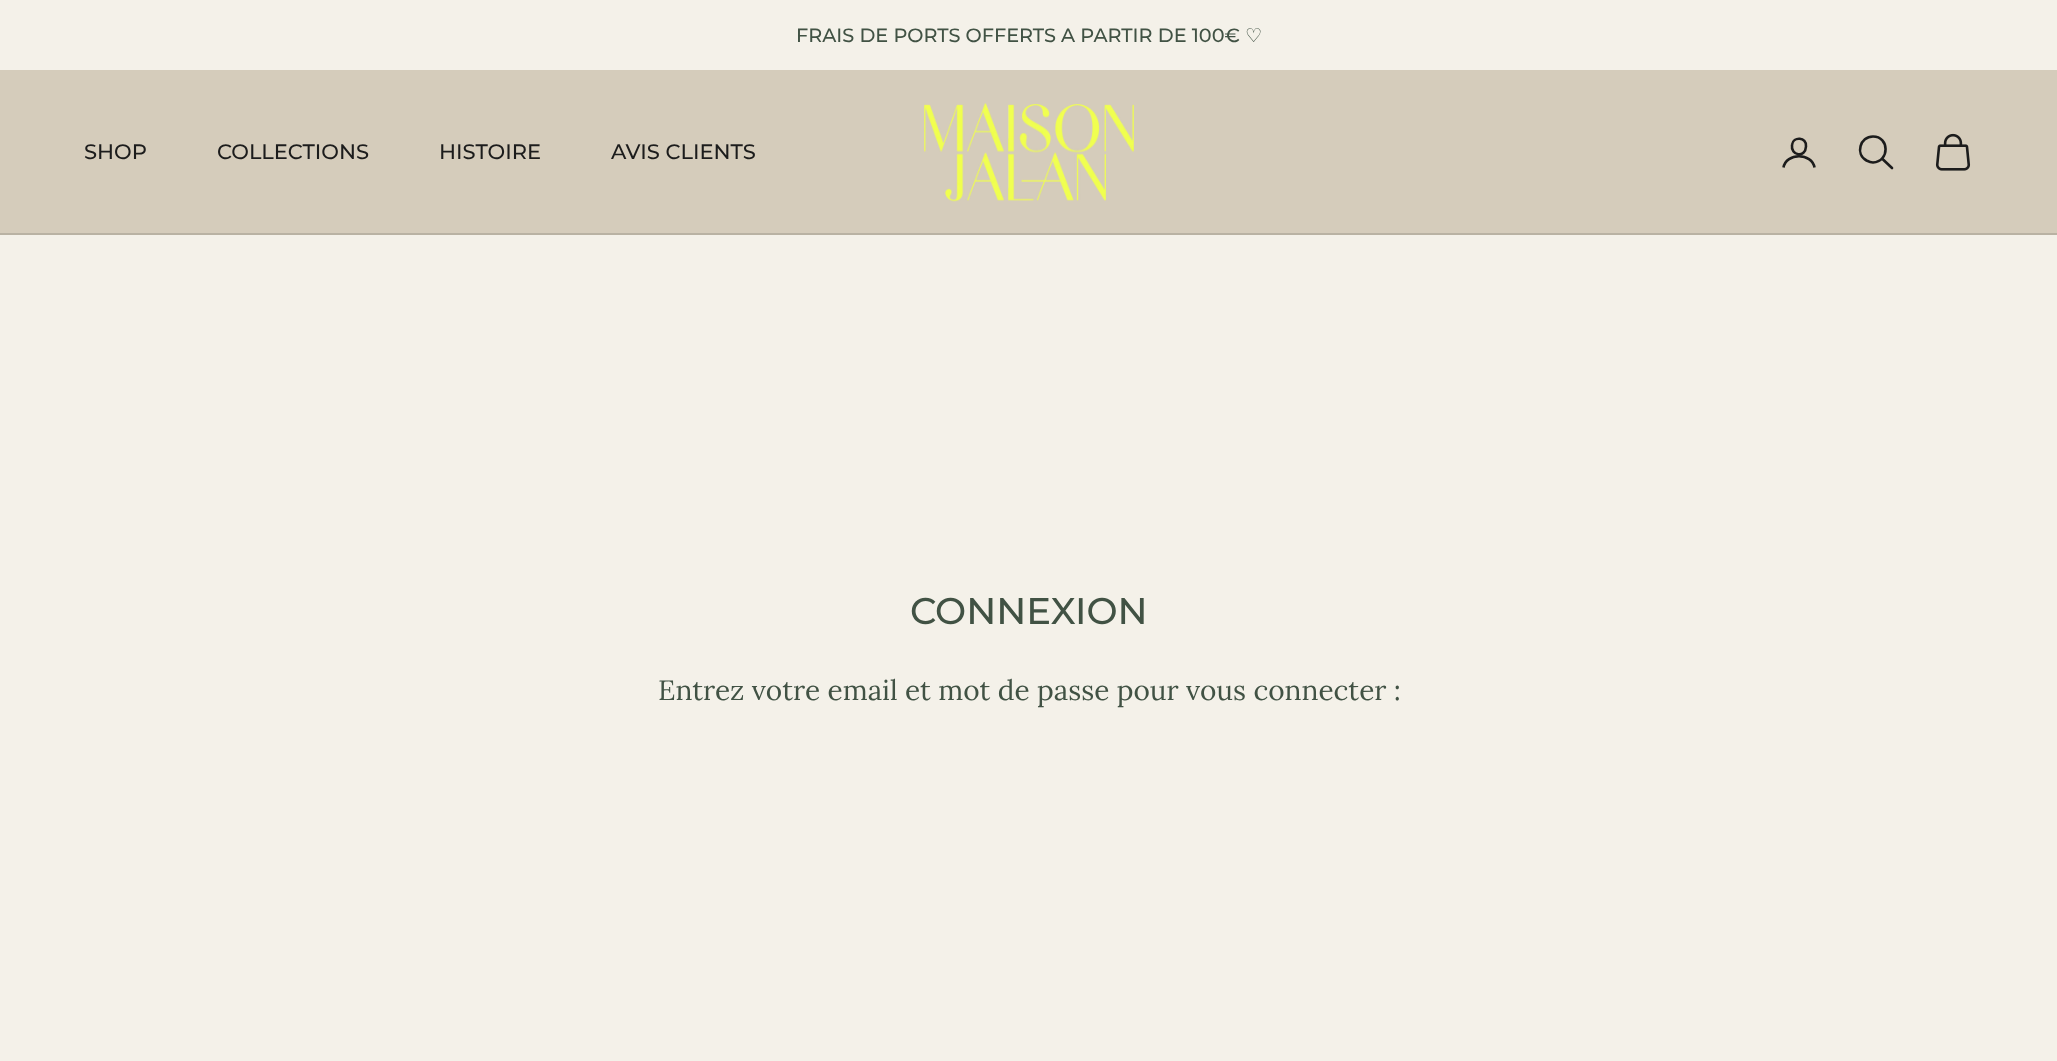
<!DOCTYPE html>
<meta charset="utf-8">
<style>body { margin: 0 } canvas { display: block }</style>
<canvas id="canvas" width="2057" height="1061"></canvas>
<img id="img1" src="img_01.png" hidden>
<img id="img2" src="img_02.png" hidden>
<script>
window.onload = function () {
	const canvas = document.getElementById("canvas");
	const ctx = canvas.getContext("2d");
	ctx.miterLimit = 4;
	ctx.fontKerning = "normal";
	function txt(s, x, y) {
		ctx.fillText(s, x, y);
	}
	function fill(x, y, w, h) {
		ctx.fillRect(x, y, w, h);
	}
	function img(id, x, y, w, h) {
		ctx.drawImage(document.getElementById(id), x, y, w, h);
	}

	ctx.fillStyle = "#F4F1E9";
	fill(0, 0, 2057, 1061);
	ctx.fillStyle = "#D5CCBB";
	fill(0, 70, 2057, 163);
	ctx.fillStyle = "#B9B2A3";
	fill(0, 233, 2057, 2);
	img("img1", 924, 103, 210, 99);
	ctx.beginPath();
	ctx.moveTo(1806, 146.5);
	ctx.bezierCurveTo(1805.5, 158, 1790.5, 156, 1792, 145);
	ctx.bezierCurveTo(1793, 136, 1807, 137, 1806, 146.5);
	ctx.closePath();
	ctx.strokeStyle = "#1C1C1C";
	ctx.lineWidth = 2.6;
	ctx.lineCap = "round";
	ctx.lineJoin = "round";
	ctx.stroke();
	ctx.beginPath();
	ctx.moveTo(1783.5, 167.5);
	ctx.bezierCurveTo(1786, 152.5, 1812, 152.5, 1814.5, 167.5);
	ctx.lineCap = "butt";
	ctx.lineJoin = "miter";
	ctx.stroke();
	ctx.beginPath();
	ctx.moveTo(1873, 136.5);
	ctx.bezierCurveTo(1860, 136.5, 1855, 154, 1866.5, 160.5);
	ctx.bezierCurveTo(1868.5, 161.5, 1871, 162.5, 1873, 162.5);
	ctx.bezierCurveTo(1890, 161.5, 1889.5, 136.5, 1873, 136.5);
	ctx.closePath();
	ctx.stroke();
	ctx.beginPath();
	ctx.moveTo(1882.5, 159);
	ctx.lineTo(1892, 168);
	ctx.lineCap = "round";
	ctx.stroke();
	img("img2", 1935, 133, 36, 38);
	ctx.font = "500 19.25px Montserrat";
	ctx.fillStyle = "#415244";
	txt("FRAIS DE PORTS OFFERTS A PARTIR DE 100€", 796, 42);
	ctx.font = "19.25px DejaVu Sans";
	txt("♡", 1245, 42);
	ctx.font = "500 21px Montserrat";
	ctx.fillStyle = "#1C1C1C";
	txt("SHOP", 84, 159);
	txt("COLLECTIONS", 217, 159);
	txt("HISTOIRE", 439, 159);
	txt("AVIS CLIENTS", 611, 159);
	ctx.font = "500 37px Montserrat";
	ctx.fillStyle = "#415244";
	txt("CONNEXION", 910, 624);
	ctx.font = "28px Lora";
	txt("Entrez votre email et mot de passe pour vous connecter :", 658, 700);
};
</script>
